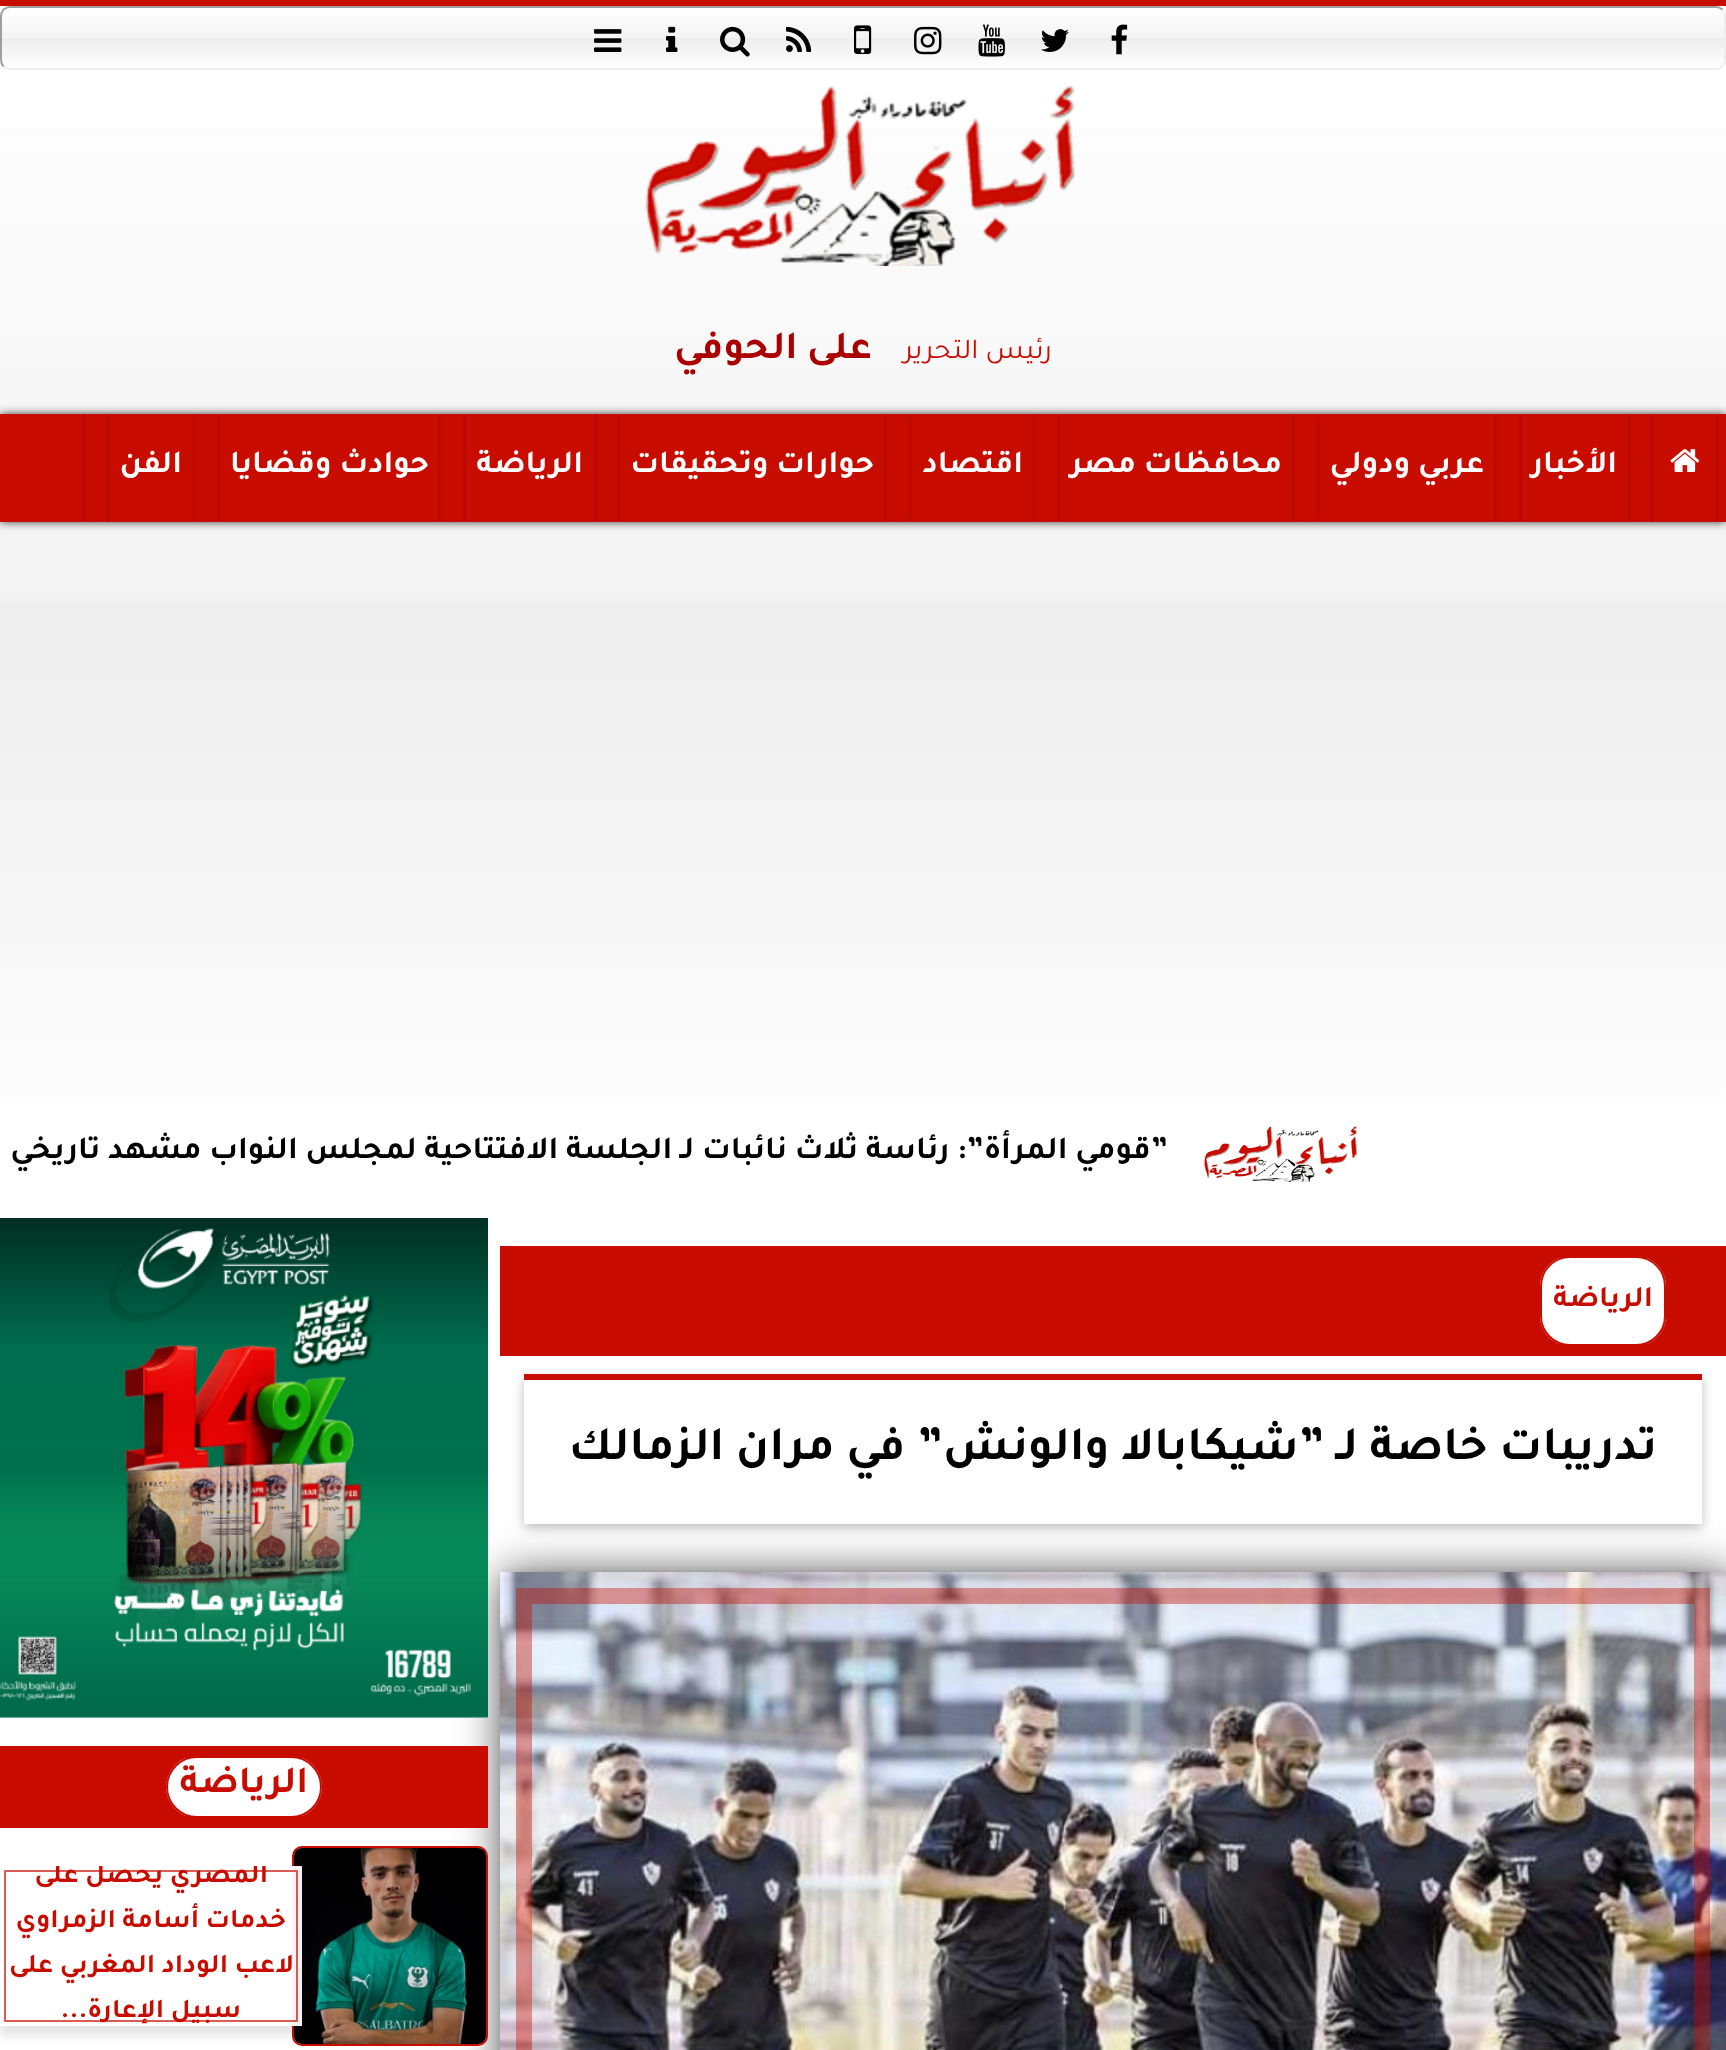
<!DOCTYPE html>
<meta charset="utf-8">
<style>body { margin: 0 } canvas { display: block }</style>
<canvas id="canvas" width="1726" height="2050"></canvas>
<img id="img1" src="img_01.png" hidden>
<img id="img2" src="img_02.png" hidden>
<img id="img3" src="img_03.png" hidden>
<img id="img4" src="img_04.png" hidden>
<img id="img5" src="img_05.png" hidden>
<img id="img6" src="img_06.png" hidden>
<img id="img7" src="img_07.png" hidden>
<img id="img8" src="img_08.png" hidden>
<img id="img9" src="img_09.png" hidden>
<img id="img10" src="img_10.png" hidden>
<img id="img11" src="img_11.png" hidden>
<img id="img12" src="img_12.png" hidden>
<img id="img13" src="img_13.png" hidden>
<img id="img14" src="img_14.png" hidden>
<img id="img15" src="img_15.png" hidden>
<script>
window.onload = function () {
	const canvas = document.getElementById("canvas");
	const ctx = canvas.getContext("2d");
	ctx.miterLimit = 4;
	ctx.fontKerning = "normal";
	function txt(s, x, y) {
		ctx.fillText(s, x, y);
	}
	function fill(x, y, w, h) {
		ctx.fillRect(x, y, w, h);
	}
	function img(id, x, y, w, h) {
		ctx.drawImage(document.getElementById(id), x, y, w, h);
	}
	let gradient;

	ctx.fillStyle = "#FFFFFF";
	fill(0, 0, 1726, 2050);
	gradient = ctx.createLinearGradient(863, 6, 863, 1186);
	gradient.addColorStop(0, "#FFFFFF");
	gradient.addColorStop(0.5, "#F3F3F3");
	gradient.addColorStop(0.51, "#EDEDED");
	gradient.addColorStop(1, "#FFFFFF");
	ctx.fillStyle = gradient;
	fill(0, 129, 1726, 977);
	ctx.fillStyle = "#C90C00";
	fill(0, 0, 1726, 6);
	ctx.save();
	ctx.beginPath();
	ctx.roundRect(0, 6, 1726, 64, 10);
	ctx.clip();
	gradient = ctx.createLinearGradient(863, 8, 863, 68);
	gradient.addColorStop(0, "#FFFFFF");
	gradient.addColorStop(0.5, "#F3F3F3");
	gradient.addColorStop(0.51, "#EDEDED");
	gradient.addColorStop(1, "#FFFFFF");
	ctx.fillStyle = gradient;
	fill(0, 8, 1726, 60);
	ctx.restore();
	ctx.beginPath();
	ctx.moveTo(1722.5, 9.5);
	ctx.bezierCurveTo(1724, 11.5, 1725, 13.5, 1725, 16);
	ctx.lineTo(1725, 60);
	ctx.bezierCurveTo(1725, 62.5, 1724, 64.5, 1722.5, 66.5);
	ctx.bezierCurveTo(1720.5, 68, 1718.5, 69, 1716, 69);
	ctx.lineTo(10, 69);
	ctx.bezierCurveTo(7.5, 69, 5.5, 68, 3.5, 66.5);
	ctx.strokeStyle = "#EEEEEE";
	ctx.lineWidth = 2;
	ctx.stroke();
	ctx.beginPath();
	ctx.moveTo(3.5, 66.5);
	ctx.bezierCurveTo(2, 64.5, 1, 62.5, 1, 60);
	ctx.lineTo(1, 16);
	ctx.bezierCurveTo(1, 13.5, 2, 11.5, 3.5, 9.5);
	ctx.bezierCurveTo(5.5, 8, 7.5, 7, 10, 7);
	ctx.lineTo(1716, 7);
	ctx.bezierCurveTo(1718.5, 7, 1720.5, 8, 1722.5, 9.5);
	ctx.strokeStyle = "#9F9F9F";
	ctx.stroke();
	img("img1", 1111, 24, 17, 31);
	img("img2", 1041, 29, 28, 23);
	img("img3", 978, 24, 27, 33);
	img("img4", 914, 26, 28, 29);
	img("img5", 854, 25, 18, 29);
	img("img6", 786, 26, 26, 26);
	img("img7", 720, 26, 30, 31);
	img("img8", 666, 26, 12, 26);
	img("img9", 594, 29, 28, 23);
	img("img10", 645, 86, 431, 180);
	ctx.fillStyle = "rgba(0, 0, 0, 0.75)";
	ctx.filter = "blur(5px)";
	ctx.beginPath();
	ctx.rect(0, 414, 1726, 108);
	ctx.fill();
	ctx.filter = "none";
	ctx.fillStyle = "#C90C00";
	fill(0, 414, 1726, 108);
	ctx.save();
	ctx.beginPath();
	ctx.rect(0, 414, 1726, 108);
	ctx.clip();
	ctx.beginPath();
	ctx.moveTo(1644, 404);
	ctx.lineTo(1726, 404);
	ctx.lineTo(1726, 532);
	ctx.lineTo(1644, 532);
	ctx.closePath();
	ctx.moveTo(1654, 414);
	ctx.lineTo(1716, 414);
	ctx.lineTo(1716, 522);
	ctx.lineTo(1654, 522);
	ctx.closePath();
	ctx.clip("evenodd");
	ctx.fillStyle = "#AA0000";
	ctx.filter = "blur(3px)";
	ctx.beginPath();
	ctx.rect(1654, 414, 62, 108);
	ctx.fill();
	ctx.filter = "none";
	ctx.restore();
	img("img11", 1670, 449, 30, 23);
	ctx.save();
	ctx.beginPath();
	ctx.rect(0, 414, 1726, 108);
	ctx.clip();
	ctx.beginPath();
	ctx.moveTo(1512, 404);
	ctx.lineTo(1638, 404);
	ctx.lineTo(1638, 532);
	ctx.lineTo(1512, 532);
	ctx.closePath();
	ctx.moveTo(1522, 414);
	ctx.lineTo(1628, 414);
	ctx.lineTo(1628, 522);
	ctx.lineTo(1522, 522);
	ctx.closePath();
	ctx.clip("evenodd");
	ctx.fillStyle = "#AA0000";
	ctx.filter = "blur(3px)";
	ctx.beginPath();
	ctx.rect(1522, 414, 106, 108);
	ctx.fill();
	ctx.filter = "none";
	ctx.restore();
	ctx.save();
	ctx.beginPath();
	ctx.rect(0, 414, 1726, 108);
	ctx.clip();
	ctx.beginPath();
	ctx.moveTo(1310, 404);
	ctx.lineTo(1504, 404);
	ctx.lineTo(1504, 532);
	ctx.lineTo(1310, 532);
	ctx.closePath();
	ctx.moveTo(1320, 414);
	ctx.lineTo(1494, 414);
	ctx.lineTo(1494, 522);
	ctx.lineTo(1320, 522);
	ctx.closePath();
	ctx.clip("evenodd");
	ctx.fillStyle = "#AA0000";
	ctx.filter = "blur(3px)";
	ctx.beginPath();
	ctx.rect(1320, 414, 174, 108);
	ctx.fill();
	ctx.filter = "none";
	ctx.restore();
	ctx.save();
	ctx.beginPath();
	ctx.rect(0, 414, 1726, 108);
	ctx.clip();
	ctx.beginPath();
	ctx.moveTo(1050, 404);
	ctx.lineTo(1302, 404);
	ctx.lineTo(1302, 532);
	ctx.lineTo(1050, 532);
	ctx.closePath();
	ctx.moveTo(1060, 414);
	ctx.lineTo(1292, 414);
	ctx.lineTo(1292, 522);
	ctx.lineTo(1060, 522);
	ctx.closePath();
	ctx.clip("evenodd");
	ctx.fillStyle = "#AA0000";
	ctx.filter = "blur(3px)";
	ctx.beginPath();
	ctx.rect(1060, 414, 232, 108);
	ctx.fill();
	ctx.filter = "none";
	ctx.restore();
	ctx.save();
	ctx.beginPath();
	ctx.rect(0, 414, 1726, 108);
	ctx.clip();
	ctx.beginPath();
	ctx.moveTo(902, 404);
	ctx.lineTo(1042, 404);
	ctx.lineTo(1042, 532);
	ctx.lineTo(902, 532);
	ctx.closePath();
	ctx.moveTo(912, 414);
	ctx.lineTo(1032, 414);
	ctx.lineTo(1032, 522);
	ctx.lineTo(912, 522);
	ctx.closePath();
	ctx.clip("evenodd");
	ctx.fillStyle = "#AA0000";
	ctx.filter = "blur(3px)";
	ctx.beginPath();
	ctx.rect(912, 414, 120, 108);
	ctx.fill();
	ctx.filter = "none";
	ctx.restore();
	ctx.save();
	ctx.beginPath();
	ctx.rect(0, 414, 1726, 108);
	ctx.clip();
	ctx.beginPath();
	ctx.moveTo(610, 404);
	ctx.lineTo(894, 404);
	ctx.lineTo(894, 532);
	ctx.lineTo(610, 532);
	ctx.closePath();
	ctx.moveTo(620, 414);
	ctx.lineTo(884, 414);
	ctx.lineTo(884, 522);
	ctx.lineTo(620, 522);
	ctx.closePath();
	ctx.clip("evenodd");
	ctx.fillStyle = "#AA0000";
	ctx.filter = "blur(3px)";
	ctx.beginPath();
	ctx.rect(620, 414, 264, 108);
	ctx.fill();
	ctx.filter = "none";
	ctx.restore();
	ctx.save();
	ctx.beginPath();
	ctx.rect(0, 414, 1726, 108);
	ctx.clip();
	ctx.beginPath();
	ctx.moveTo(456, 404);
	ctx.lineTo(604, 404);
	ctx.lineTo(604, 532);
	ctx.lineTo(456, 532);
	ctx.closePath();
	ctx.moveTo(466, 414);
	ctx.lineTo(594, 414);
	ctx.lineTo(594, 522);
	ctx.lineTo(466, 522);
	ctx.closePath();
	ctx.clip("evenodd");
	ctx.fillStyle = "#AA0000";
	ctx.filter = "blur(3px)";
	ctx.beginPath();
	ctx.rect(466, 414, 128, 108);
	ctx.fill();
	ctx.filter = "none";
	ctx.restore();
	ctx.save();
	ctx.beginPath();
	ctx.rect(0, 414, 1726, 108);
	ctx.clip();
	ctx.beginPath();
	ctx.moveTo(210, 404);
	ctx.lineTo(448, 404);
	ctx.lineTo(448, 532);
	ctx.lineTo(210, 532);
	ctx.closePath();
	ctx.moveTo(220, 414);
	ctx.lineTo(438, 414);
	ctx.lineTo(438, 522);
	ctx.lineTo(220, 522);
	ctx.closePath();
	ctx.clip("evenodd");
	ctx.fillStyle = "#AA0000";
	ctx.filter = "blur(3px)";
	ctx.beginPath();
	ctx.rect(220, 414, 218, 108);
	ctx.fill();
	ctx.filter = "none";
	ctx.restore();
	ctx.save();
	ctx.beginPath();
	ctx.rect(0, 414, 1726, 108);
	ctx.clip();
	ctx.beginPath();
	ctx.moveTo(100, 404);
	ctx.lineTo(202, 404);
	ctx.lineTo(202, 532);
	ctx.lineTo(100, 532);
	ctx.closePath();
	ctx.moveTo(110, 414);
	ctx.lineTo(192, 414);
	ctx.lineTo(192, 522);
	ctx.lineTo(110, 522);
	ctx.closePath();
	ctx.clip("evenodd");
	ctx.fillStyle = "#AA0000";
	ctx.filter = "blur(3px)";
	ctx.beginPath();
	ctx.rect(110, 414, 82, 108);
	ctx.fill();
	ctx.filter = "none";
	ctx.restore();
	ctx.save();
	ctx.beginPath();
	ctx.rect(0, 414, 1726, 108);
	ctx.clip();
	ctx.beginPath();
	ctx.rect(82, 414, 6, 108);
	ctx.clip();
	ctx.fillStyle = "#AA0000";
	ctx.filter = "blur(3px)";
	ctx.beginPath();
	ctx.rect(-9, 414, 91, 108);
	ctx.fill();
	ctx.filter = "none";
	ctx.restore();
	img("img12", 1204, 1126, 154, 56);
	fill(500, 1246, 1226, 110);
	ctx.save();
	ctx.beginPath();
	ctx.roundRect(1540, 1256, 126, 90, 30);
	ctx.clip();
	ctx.fillStyle = "#FFFFFF";
	fill(1540, 1258, 126, 86);
	ctx.restore();
	ctx.beginPath();
	ctx.roundRect(1541, 1257, 124, 88, 29);
	ctx.strokeStyle = "#C90C00";
	ctx.stroke();
	ctx.save();
	ctx.beginPath();
	ctx.moveTo(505, 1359);
	ctx.lineTo(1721, 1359);
	ctx.lineTo(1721, 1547);
	ctx.lineTo(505, 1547);
	ctx.closePath();
	ctx.moveTo(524, 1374);
	ctx.lineTo(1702, 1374);
	ctx.lineTo(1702, 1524);
	ctx.lineTo(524, 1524);
	ctx.closePath();
	ctx.clip("evenodd");
	ctx.fillStyle = "rgba(0, 0, 0, 0.25)";
	ctx.filter = "blur(6px)";
	ctx.beginPath();
	ctx.rect(524, 1378, 1178, 150);
	ctx.fill();
	ctx.filter = "none";
	ctx.restore();
	fill(524, 1374, 1178, 6);
	ctx.fillStyle = "rgba(0, 0, 0, 0.5)";
	ctx.filter = "blur(25px)";
	ctx.beginPath();
	ctx.rect(504, 1576, 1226, 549);
	ctx.fill();
	ctx.filter = "none";
	ctx.fillStyle = "rgba(0, 0, 0, 0.35)";
	ctx.filter = "blur(17px)";
	ctx.beginPath();
	ctx.rect(504, 1576, 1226, 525);
	ctx.fill();
	ctx.filter = "none";
	ctx.fillStyle = "rgba(0, 0, 0, 0.2)";
	ctx.filter = "blur(5px)";
	ctx.beginPath();
	ctx.rect(504, 1576, 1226, 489);
	ctx.fill();
	ctx.filter = "none";
	img("img13", 500, 1572, 1226, 478);
	ctx.strokeStyle = "rgba(201, 12, 0, 0.4)";
	ctx.lineWidth = 16;
	ctx.strokeRect(524, 1596, 1178, 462);
	img("img14", 0, 1218, 488, 500);
	ctx.fillStyle = "#C90C00";
	fill(0, 1746, 488, 82);
	ctx.save();
	ctx.beginPath();
	ctx.roundRect(166, 1756, 156, 62, 31);
	ctx.clip();
	ctx.fillStyle = "#FFFFFF";
	fill(166, 1758, 156, 58);
	ctx.restore();
	ctx.beginPath();
	ctx.roundRect(167, 1757, 154, 60, 30);
	ctx.strokeStyle = "#C90C00";
	ctx.lineWidth = 2;
	ctx.stroke();
	ctx.beginPath();
	ctx.roundRect(293, 1847, 194, 198, 9);
	ctx.stroke();
	img("img15", 294, 1848, 192, 196);
	ctx.save();
	ctx.beginPath();
	ctx.moveTo(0, 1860);
	ctx.lineTo(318, 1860);
	ctx.lineTo(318, 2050);
	ctx.lineTo(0, 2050);
	ctx.closePath();
	ctx.moveTo(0, 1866);
	ctx.lineTo(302, 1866);
	ctx.lineTo(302, 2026);
	ctx.lineTo(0, 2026);
	ctx.closePath();
	ctx.clip("evenodd");
	ctx.fillStyle = "rgba(0, 0, 0, 0.1)";
	ctx.filter = "blur(5px)";
	ctx.beginPath();
	ctx.rect(0, 1876, 302, 160);
	ctx.fill();
	ctx.filter = "none";
	ctx.restore();
	ctx.fillStyle = "rgba(255, 255, 255, 0.95)";
	fill(292, 1866, 10, 160);
	ctx.strokeStyle = "rgba(201, 12, 0, 0.67)";
	ctx.strokeRect(5, 1871, 292, 150);
	ctx.direction = "rtl";
	ctx.font = "28.75px Tajawal";
	ctx.fillStyle = "#C90C00";
	txt("رئيس التحرير", 1052, 358);
	ctx.font = "bold 40px Tajawal";
	ctx.fillStyle = "#AA0000";
	txt("على الحوفي", 872, 358);
	ctx.font = "bold 32px Tajawal";
	ctx.fillStyle = "#FFFFFF";
	txt("الأخبار", 1617, 472);
	txt("عربي ودولي", 1484, 472);
	txt("محافظات مصر", 1282, 472);
	txt("اقتصاد", 1023, 472);
	txt("حوارات وتحقيقات", 874, 472);
	txt("الرياضة", 583, 472);
	txt("حوادث وقضايا", 429, 472);
	txt("الفن", 182, 472);
	ctx.fillStyle = "#000000";
	txt("”قومي المرأة”: رئاسة ثلاث نائبات لـ الجلسة الافتتاحية لمجلس النواب مشهد تاريخي", 1168, 1158);
	ctx.font = "bold 30px Tajawal";
	ctx.fillStyle = "#C90C00";
	txt("الرياضة", 1653, 1306);
	ctx.font = "bold 48px Tajawal";
	ctx.fillStyle = "#000000";
	txt("تدريبات خاصة لـ ”شيكابالا والونش” في مران الزمالك", 1657, 1459);
	ctx.font = "bold 38.5px Tajawal";
	ctx.fillStyle = "#C90C00";
	txt("الرياضة", 308, 1792);
	ctx.save();
	ctx.beginPath();
	ctx.rect(0, 1866, 302, 160);
	ctx.clip();
	ctx.font = "bold 27.25px Tajawal";
	txt("المصري يحصل على", 268, 1882);
	ctx.restore();
	ctx.font = "bold 27.25px Tajawal";
	txt("خدمات أسامة الزمراوي", 286, 1927);
	txt("لاعب الوداد المغربي على", 294, 1972);
	txt("سبيل الإعارة...", 241, 2017);
};
</script>
